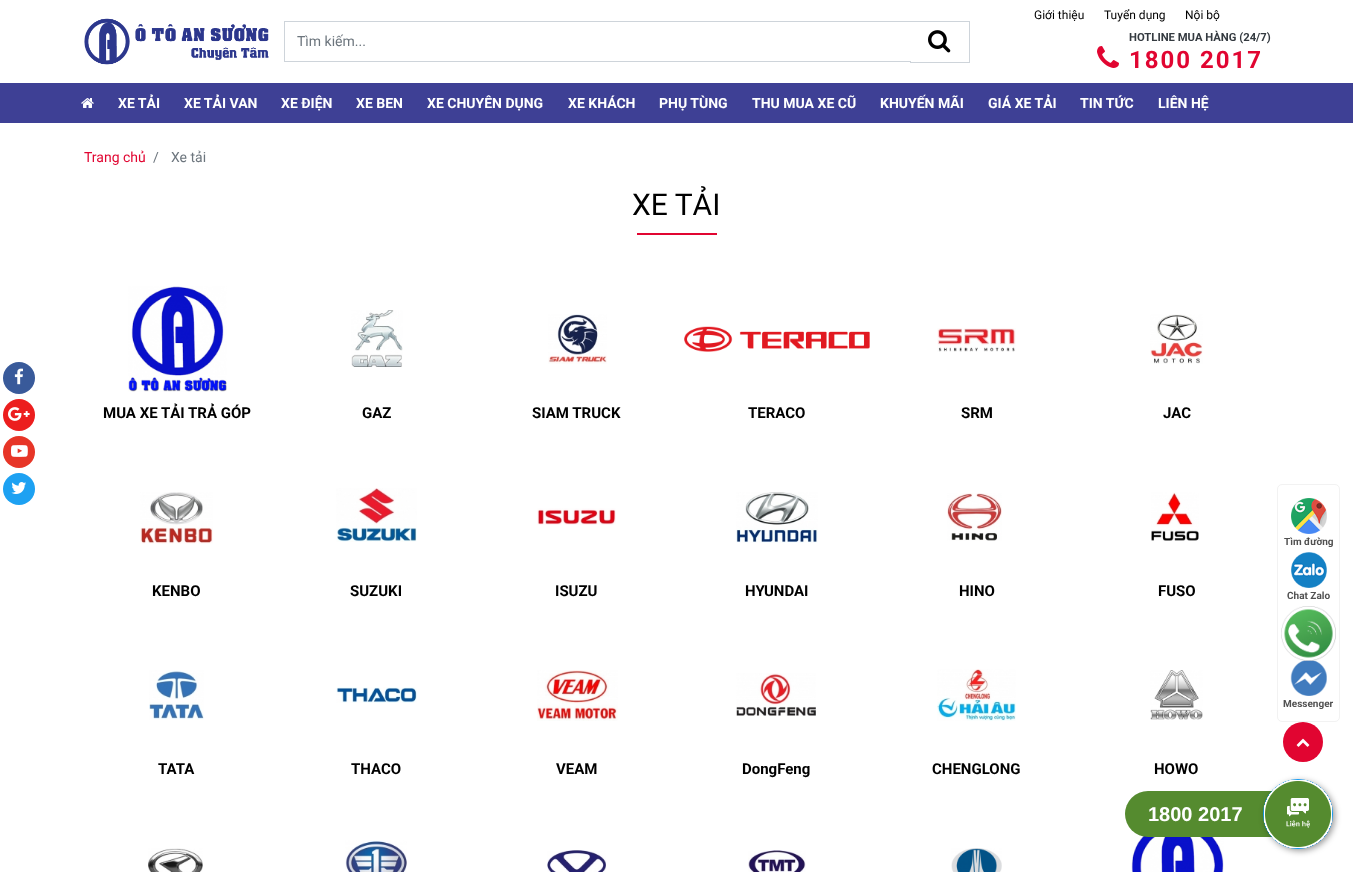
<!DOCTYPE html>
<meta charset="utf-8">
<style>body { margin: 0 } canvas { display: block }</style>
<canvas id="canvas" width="1353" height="872"></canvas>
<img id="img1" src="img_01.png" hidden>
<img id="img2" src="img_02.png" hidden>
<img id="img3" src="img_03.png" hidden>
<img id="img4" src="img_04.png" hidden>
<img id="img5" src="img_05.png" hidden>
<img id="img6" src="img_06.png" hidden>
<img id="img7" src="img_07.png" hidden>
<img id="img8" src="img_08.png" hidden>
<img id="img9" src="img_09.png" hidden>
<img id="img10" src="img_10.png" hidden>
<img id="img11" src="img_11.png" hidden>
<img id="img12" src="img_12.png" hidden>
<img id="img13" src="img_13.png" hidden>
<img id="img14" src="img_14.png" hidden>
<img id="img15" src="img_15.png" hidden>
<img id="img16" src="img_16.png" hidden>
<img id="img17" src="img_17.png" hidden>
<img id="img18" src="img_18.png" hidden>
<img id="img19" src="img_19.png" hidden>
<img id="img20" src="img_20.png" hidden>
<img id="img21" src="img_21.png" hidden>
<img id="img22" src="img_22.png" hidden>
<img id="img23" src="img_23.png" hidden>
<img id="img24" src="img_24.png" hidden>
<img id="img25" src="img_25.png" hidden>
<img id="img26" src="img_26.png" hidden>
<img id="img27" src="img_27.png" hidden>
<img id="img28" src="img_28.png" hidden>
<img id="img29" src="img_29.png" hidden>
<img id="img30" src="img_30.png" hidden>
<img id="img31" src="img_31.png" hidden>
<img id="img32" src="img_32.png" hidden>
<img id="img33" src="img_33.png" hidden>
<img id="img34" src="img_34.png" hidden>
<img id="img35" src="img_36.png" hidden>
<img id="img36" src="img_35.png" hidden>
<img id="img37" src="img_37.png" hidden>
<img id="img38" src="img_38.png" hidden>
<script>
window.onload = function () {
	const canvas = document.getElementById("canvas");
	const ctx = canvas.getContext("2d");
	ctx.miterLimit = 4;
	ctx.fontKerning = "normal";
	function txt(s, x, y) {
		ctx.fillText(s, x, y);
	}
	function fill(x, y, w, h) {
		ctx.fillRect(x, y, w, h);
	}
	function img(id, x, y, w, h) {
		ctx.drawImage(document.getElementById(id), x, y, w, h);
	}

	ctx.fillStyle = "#FFFFFF";
	fill(0, 0, 1353, 872);
	ctx.fillStyle = "#395A9A";
	ctx.beginPath();
	ctx.arc(19, 378, 16, 0, Math.PI * 2);
	ctx.fill();
	img("img1", 14, 368, 9, 17);
	ctx.fillStyle = "#EC1E1E";
	ctx.beginPath();
	ctx.arc(19, 415, 16, 0, Math.PI * 2);
	ctx.fill();
	img("img2", 8, 407, 22, 14);
	ctx.fillStyle = "#E73527";
	ctx.beginPath();
	ctx.arc(19, 452, 16, 0, Math.PI * 2);
	ctx.fill();
	img("img3", 11, 445, 17, 12);
	ctx.fillStyle = "#1DA1F2";
	ctx.beginPath();
	ctx.arc(19, 489, 16, 0, Math.PI * 2);
	ctx.fill();
	img("img4", 11, 482, 15, 12);
	img("img5", 84, 18, 185, 47);
	ctx.strokeStyle = "#CED4DA";
	ctx.strokeRect(910.5, 21.5, 59, 41);
	ctx.fillStyle = "#FFFFFF";
	fill(910, 22, 1, 39);
	ctx.fillStyle = "#CED4DA";
	fill(284, 21, 627, 1);
	fill(284, 61, 627, 1);
	fill(284, 21, 1, 41);
	img("img6", 928, 30, 23, 23);
	img("img7", 1097, 46, 22, 22);
	ctx.fillStyle = "#3E4095";
	fill(0, 83, 1353, 40);
	img("img8", 81, 98, 13, 10);
	ctx.fillStyle = "#E10531";
	fill(637, 233, 80, 2);
	img("img9", 128, 286, 99, 106);
	img("img10", 351, 310, 52, 57);
	img("img11", 548, 314, 59, 50);
	img("img12", 684, 326, 186, 26);
	img("img13", 937, 328, 79, 24);
	img("img14", 1150, 314, 53, 50);
	img("img15", 140, 492, 73, 52);
	img("img16", 336, 488, 81, 54);
	img("img17", 537, 508, 79, 17);
	img("img18", 736, 492, 82, 51);
	img("img19", 947, 493, 55, 48);
	img("img20", 1151, 492, 48, 49);
	img("img21", 149, 670, 55, 50);
	img("img22", 336, 687, 81, 16);
	img("img23", 537, 670, 81, 51);
	img("img24", 736, 673, 80, 43);
	img("img25", 937, 669, 79, 52);
	img("img26", 1150, 670, 53, 50);
	img("img27", 148, 848, 55, 24);
	img("img28", 345, 840, 62, 32);
	img("img29", 547, 850, 59, 22);
	img("img30", 748, 850, 58, 22);
	img("img31", 951, 848, 51, 24);
	img("img32", 1131, 829, 93, 43);
	ctx.beginPath();
	ctx.roundRect(1277.5, 484.5, 62, 237, 4.5);
	ctx.strokeStyle = "#F2F2F2";
	ctx.stroke();
	img("img33", 1291, 498, 36, 36);
	img("img34", 1291, 552, 36, 36);
	img("img35", 1290, 660, 37, 36);
	img("img36", 1281, 606, 55, 55);
	ctx.beginPath();
	ctx.arc(1303, 742, 20, 0, Math.PI * 2);
	ctx.fill();
	img("img37", 1296, 738, 14, 9);
	ctx.fillStyle = "#558B2F";
	ctx.beginPath();
	ctx.roundRect(1125, 791, 148, 46, [23, 0, 0, 23]);
	ctx.fill();
	ctx.fillStyle = "rgba(0, 0, 0, 0.4)";
	ctx.filter = "blur(3px)";
	ctx.beginPath();
	ctx.roundRect(1265, 781, 70, 70, 35);
	ctx.fill();
	ctx.filter = "none";
	ctx.fillStyle = "#129BF4";
	ctx.beginPath();
	ctx.arc(1298, 814, 35, 0, Math.PI * 2);
	ctx.fill();
	img("img38", 1264, 780, 68, 68);
	ctx.font = "14px Roboto";
	ctx.fillStyle = "#6C757D";
	txt("Tìm kiếm...", 297, 46);
	ctx.font = "12px Roboto";
	ctx.fillStyle = "#000000";
	txt("Giới thiệu", 1034, 19);
	txt("Tuyển dụng", 1104, 19);
	txt("Nội bộ", 1185, 19);
	ctx.font = "bold 11.25px Roboto";
	ctx.fillStyle = "#343A40";
	txt("HOTLINE MUA HÀNG (24/7)", 1129, 41);
	ctx.letterSpacing = "2px";
	ctx.font = "bold 24px Roboto";
	ctx.fillStyle = "#E10531";
	txt("1800 2017", 1129, 68);
	ctx.letterSpacing = "0px";
	ctx.font = "bold 14px Roboto";
	ctx.fillStyle = "#FFFFFF";
	txt("XE TẢI", 118, 108);
	txt("XE TẢI VAN", 184, 108);
	txt("XE ĐIỆN", 281, 108);
	txt("XE BEN", 356, 108);
	txt("XE CHUYÊN DỤNG", 427, 108);
	txt("XE KHÁCH", 568, 108);
	txt("PHỤ TÙNG", 659, 108);
	txt("THU MUA XE CŨ", 752, 108);
	txt("KHUYẾN MÃI", 880, 108);
	txt("GIÁ XE TẢI", 988, 108);
	txt("TIN TỨC", 1080, 108);
	txt("LIÊN HỆ", 1158, 108);
	ctx.font = "14px Roboto";
	ctx.fillStyle = "#E10531";
	txt("Trang chủ", 84, 162);
	ctx.fillStyle = "#6C757D";
	txt("/", 153, 162);
	txt("Xe tải", 171, 162);
	ctx.font = "30px Roboto";
	ctx.fillStyle = "#000000";
	txt("XE TẢI", 632, 215);
	ctx.font = "bold 15px Roboto";
	txt("MUA XE TẢI TRẢ GÓP", 103, 418);
	txt("GAZ", 362, 418);
	txt("SIAM TRUCK", 532, 418);
	txt("TERACO", 748, 418);
	txt("SRM", 961, 418);
	txt("JAC", 1163, 418);
	txt("KENBO", 152, 596);
	txt("SUZUKI", 350, 596);
	txt("ISUZU", 555, 596);
	txt("HYUNDAI", 745, 596);
	txt("HINO", 959, 596);
	txt("FUSO", 1158, 596);
	txt("TATA", 158, 774);
	txt("THACO", 351, 774);
	txt("VEAM", 556, 774);
	txt("DongFeng", 742, 774);
	txt("CHENGLONG", 932, 774);
	txt("HOWO", 1154, 774);
	ctx.font = "bold 10px Roboto";
	ctx.fillStyle = "#515151";
	txt("Tìm đường", 1284, 545);
	txt("Chat Zalo", 1287, 599);
	txt("Messenger", 1283, 707);
	ctx.font = "bold 20px Liberation Sans";
	ctx.fillStyle = "#FFFFFF";
	txt("1800 2017", 1148, 821);
};
</script>
